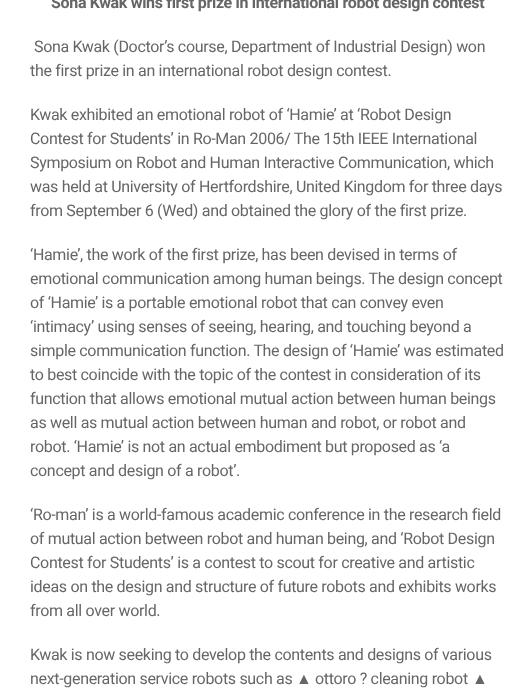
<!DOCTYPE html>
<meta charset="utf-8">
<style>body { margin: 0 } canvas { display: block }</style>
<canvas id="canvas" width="525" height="691"></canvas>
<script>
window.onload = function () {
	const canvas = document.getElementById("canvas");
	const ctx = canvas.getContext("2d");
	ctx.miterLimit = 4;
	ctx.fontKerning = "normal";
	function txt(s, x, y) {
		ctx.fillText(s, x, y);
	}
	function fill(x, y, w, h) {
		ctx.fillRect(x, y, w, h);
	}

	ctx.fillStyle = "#FFFFFF";
	fill(0, 0, 525, 691);
	ctx.letterSpacing = "-0.32px";
	ctx.font = "bold 16px Roboto";
	ctx.fillStyle = "#666666";
	txt("Sona Kwak wins first prize in international robot design contest", 51, 8);
	ctx.font = "16px Roboto";
	txt("Sona Kwak (Doctor’s course, Department of Industrial Design) won", 34, 52);
	txt("the first prize in an international robot design contest.", 30, 76);
	txt("Kwak exhibited an emotional robot of ‘Hamie’ at ‘Robot Design", 30, 120);
	txt("Contest for Students’ in Ro-Man 2006/ The 15th IEEE International", 30, 144);
	txt("Symposium on Robot and Human Interactive Communication, which", 30, 168);
	txt("was held at University of Hertfordshire, United Kingdom for three days", 30, 192);
	txt("from September 6 (Wed) and obtained the glory of the first prize.", 30, 216);
	txt("‘Hamie’, the work of the first prize, has been devised in terms of", 30, 260);
	txt("emotional communication among human beings. The design concept", 30, 284);
	txt("of ‘Hamie’ is a portable emotional robot that can convey even", 30, 308);
	txt("‘intimacy’ using senses of seeing, hearing, and touching beyond a", 30, 332);
	txt("simple communication function. The design of ‘Hamie’ was estimated", 30, 356);
	txt("to best coincide with the topic of the contest in consideration of its", 30, 380);
	txt("function that allows emotional mutual action between human beings", 30, 404);
	txt("as well as mutual action between human and robot, or robot and", 30, 428);
	txt("robot. ‘Hamie’ is not an actual embodiment but proposed as ‘a", 30, 452);
	txt("concept and design of a robot’.", 30, 476);
	txt("‘Ro-man’ is a world-famous academic conference in the research field", 30, 520);
	txt("of mutual action between robot and human being, and ‘Robot Design", 30, 544);
	txt("Contest for Students’ is a contest to scout for creative and artistic", 30, 568);
	txt("ideas on the design and structure of future robots and exhibits works", 30, 592);
	txt("from all over world.", 30, 616);
	txt("Kwak is now seeking to develop the contents and designs of various", 30, 660);
	txt("next-generation service robots such as", 30, 684);
	ctx.font = "16px Liberation Sans";
	txt("▲", 296, 684);
	ctx.font = "16px Roboto";
	txt("ottoro ? cleaning robot", 315, 684);
	ctx.font = "16px Liberation Sans";
	txt("▲", 472, 684);
};
</script>
